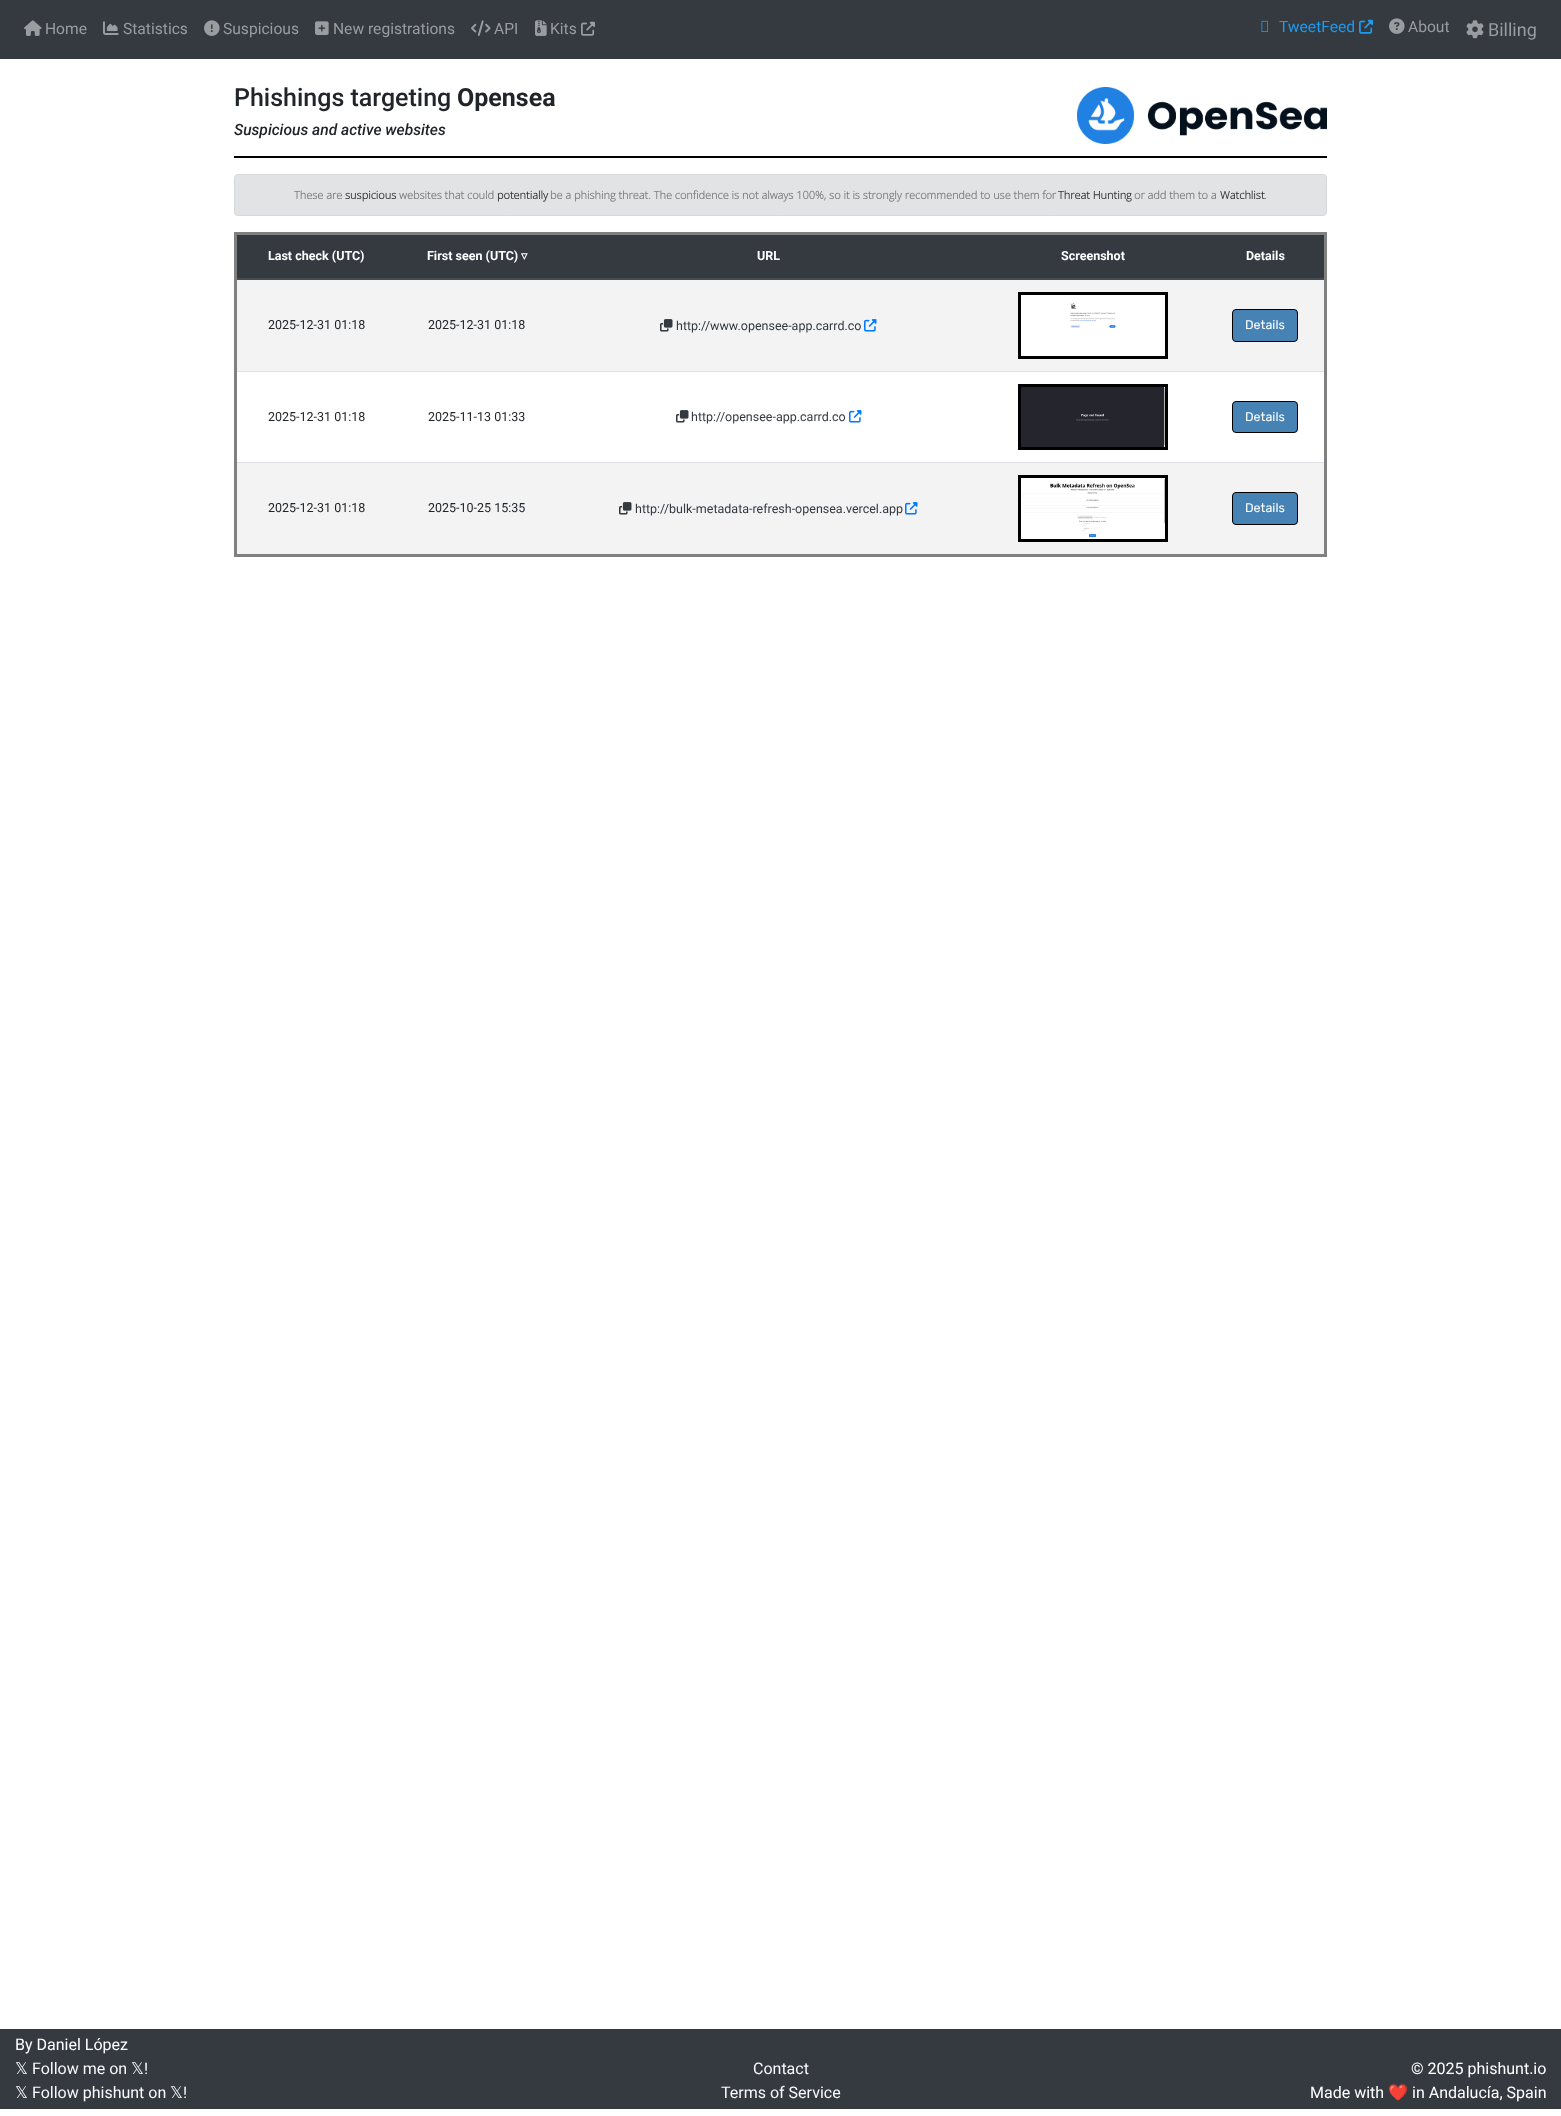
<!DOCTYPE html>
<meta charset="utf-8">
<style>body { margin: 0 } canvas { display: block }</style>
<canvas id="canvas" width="1561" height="2116"></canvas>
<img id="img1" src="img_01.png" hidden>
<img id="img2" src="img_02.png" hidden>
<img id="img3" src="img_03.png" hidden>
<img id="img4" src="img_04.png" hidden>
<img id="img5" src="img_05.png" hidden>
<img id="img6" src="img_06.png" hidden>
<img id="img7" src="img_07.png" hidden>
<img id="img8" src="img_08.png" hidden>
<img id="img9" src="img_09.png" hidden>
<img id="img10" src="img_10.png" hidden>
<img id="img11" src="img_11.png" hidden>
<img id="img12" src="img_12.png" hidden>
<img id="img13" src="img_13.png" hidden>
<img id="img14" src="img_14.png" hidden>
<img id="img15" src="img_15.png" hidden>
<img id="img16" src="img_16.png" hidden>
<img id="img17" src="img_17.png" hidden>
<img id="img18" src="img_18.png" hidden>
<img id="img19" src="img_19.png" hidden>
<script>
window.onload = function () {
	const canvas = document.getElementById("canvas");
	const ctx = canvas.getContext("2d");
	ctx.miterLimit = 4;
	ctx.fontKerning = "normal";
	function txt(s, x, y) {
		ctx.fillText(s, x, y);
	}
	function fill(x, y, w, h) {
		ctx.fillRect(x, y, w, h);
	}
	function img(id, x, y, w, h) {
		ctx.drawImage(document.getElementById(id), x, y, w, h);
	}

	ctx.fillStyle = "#FFFFFF";
	fill(0, 0, 1561, 2116);
	ctx.fillStyle = "#343A40";
	fill(0, 0, 1561, 59);
	img("img1", 24, 20, 18, 16);
	img("img2", 103, 21, 16, 14);
	img("img3", 204, 20, 16, 16);
	img("img4", 315, 21, 14, 14);
	img("img5", 471, 20, 20, 16);
	img("img6", 535, 20, 12, 16);
	img("img7", 581, 21, 14, 15);
	img("img8", 1261, 20, 7, 12);
	img("img9", 1359, 19, 14, 15);
	img("img10", 1389, 18, 16, 16);
	img("img11", 1466, 20, 18, 19);
	img("img12", 1077, 87, 250, 57);
	ctx.fillStyle = "#000000";
	fill(234, 156, 1093, 2);
	ctx.fillStyle = "#E2E3E5";
	ctx.beginPath();
	ctx.roundRect(234.5, 174.5, 1092, 41, 3.5);
	ctx.fill();
	ctx.strokeStyle = "#D6D8DB";
	ctx.stroke();
	ctx.fillStyle = "#808080";
	fill(234, 232, 1093, 3);
	ctx.fillStyle = "#454D55";
	fill(235, 278, 1091, 2);
	ctx.fillStyle = "#DEE2E6";
	fill(235, 371, 1091, 1);
	fill(235, 462, 1091, 1);
	ctx.fillStyle = "#808080";
	fill(1324, 232, 3, 325);
	fill(234, 554, 1093, 3);
	fill(234, 232, 3, 325);
	ctx.fillStyle = "#343A40";
	fill(237, 235, 1087, 43);
	ctx.fillStyle = "#F3F3F3";
	fill(237, 280, 1087, 91);
	img("img13", 660, 319, 13, 13);
	img("img14", 864, 319, 13, 13);
	ctx.strokeStyle = "#000000";
	ctx.lineWidth = 3;
	ctx.strokeRect(1019.5, 293.5, 147, 64);
	img("img15", 1021, 295, 144, 61);
	ctx.fillStyle = "#4682B4";
	ctx.beginPath();
	ctx.roundRect(1232.5, 309.5, 65, 32, 3.5);
	ctx.fill();
	ctx.lineWidth = 1;
	ctx.stroke();
	img("img16", 676, 410, 13, 13);
	img("img17", 849, 410, 13, 13);
	ctx.lineWidth = 3;
	ctx.strokeRect(1019.5, 385.5, 147, 63);
	img("img18", 1021, 387, 144, 60);
	ctx.beginPath();
	ctx.roundRect(1232.5, 401.5, 65, 31, 3.5);
	ctx.fill();
	ctx.lineWidth = 1;
	ctx.stroke();
	ctx.fillStyle = "#F3F3F3";
	fill(237, 463, 1087, 91);
	img("img13", 619, 502, 13, 13);
	img("img14", 905, 502, 13, 13);
	ctx.lineWidth = 3;
	ctx.strokeRect(1019.5, 476.5, 147, 64);
	img("img19", 1021, 478, 144, 61);
	ctx.fillStyle = "#4682B4";
	ctx.beginPath();
	ctx.roundRect(1232.5, 492.5, 65, 32, 3.5);
	ctx.fill();
	ctx.lineWidth = 1;
	ctx.stroke();
	ctx.fillStyle = "#343A40";
	fill(0, 2029, 1561, 80);
	ctx.font = "15.6px Roboto";
	ctx.fillStyle = "#9A9DA0";
	txt("Home", 45, 34);
	txt("Statistics", 123, 34);
	txt("Suspicious", 223, 34);
	txt("New registrations", 333, 34);
	txt("API", 494, 34);
	txt("Kits", 550, 34);
	ctx.fillStyle = "#1D9BF0";
	txt("TweetFeed", 1279, 32);
	ctx.fillStyle = "#9A9DA0";
	txt("About", 1408, 32);
	ctx.font = "18px Roboto";
	txt("Billing", 1488, 36);
	ctx.font = "500 25px Roboto";
	ctx.fillStyle = "#212529";
	txt("Phishings targeting", 234, 106);
	ctx.font = "bold 25px Roboto";
	txt("Opensea", 457, 106);
	ctx.font = "italic 500 15.6px Roboto";
	txt("Suspicious and active websites", 234, 135);
	ctx.font = "bold 10.95px Open Sans";
	ctx.fillStyle = "#808080";
	txt("These are", 294, 199);
	ctx.fillStyle = "#353839";
	txt("suspicious", 345, 199);
	ctx.fillStyle = "#808080";
	txt("websites that could", 399, 199);
	ctx.fillStyle = "#353839";
	txt("potentially", 497, 199);
	ctx.fillStyle = "#808080";
	txt("be a phishing threat. The confidence is not always 100%, so it is strongly recommended to use them for", 550, 199);
	ctx.fillStyle = "#353839";
	txt("Threat Hunting", 1058, 199);
	ctx.fillStyle = "#808080";
	txt("or add them to a", 1134, 199);
	ctx.fillStyle = "#353839";
	txt("Watchlist", 1220, 199);
	ctx.fillStyle = "#808080";
	txt(".", 1264, 199);
	ctx.font = "bold 12.5px Roboto";
	ctx.fillStyle = "#FFFFFF";
	txt("Last check (UTC)", 268, 260);
	txt("First seen (UTC)", 427, 260);
	ctx.font = "bold 12.5px DejaVu Sans";
	txt("▿", 521, 260);
	ctx.font = "bold 12.5px Roboto";
	txt("URL", 757, 260);
	txt("Screenshot", 1061, 260);
	txt("Details", 1246, 260);
	ctx.font = "12.5px Roboto";
	ctx.fillStyle = "#212529";
	txt("2025-12-31 01:18", 268, 329);
	txt("2025-12-31 01:18", 428, 329);
	ctx.fillStyle = "#343A40";
	txt("http://www.opensee-app.carrd.co", 676, 330);
	ctx.font = "12.5px Rubik";
	ctx.fillStyle = "#FFFFFF";
	txt("Details", 1245, 329);
	ctx.font = "12.5px Roboto";
	ctx.fillStyle = "#212529";
	txt("2025-12-31 01:18", 268, 421);
	txt("2025-11-13 01:33", 428, 421);
	ctx.fillStyle = "#343A40";
	txt("http://opensee-app.carrd.co", 691, 421);
	ctx.font = "12.5px Rubik";
	ctx.fillStyle = "#FFFFFF";
	txt("Details", 1245, 421);
	ctx.font = "12.5px Roboto";
	ctx.fillStyle = "#212529";
	txt("2025-12-31 01:18", 268, 512);
	txt("2025-10-25 15:35", 428, 512);
	ctx.fillStyle = "#343A40";
	txt("http://bulk-metadata-refresh-opensea.vercel.app", 635, 513);
	ctx.font = "12.5px Rubik";
	ctx.fillStyle = "#FFFFFF";
	txt("Details", 1245, 512);
	ctx.font = "16px Roboto";
	txt("By Daniel López", 15, 2050);
	ctx.font = "16px DejaVu Sans";
	ctx.fillStyle = "#F8F9FA";
	txt("𝕏", 15, 2074);
	ctx.font = "16px Roboto";
	txt("Follow me on", 32, 2074);
	ctx.font = "16px DejaVu Sans";
	txt("𝕏", 131, 2074);
	ctx.font = "16px Roboto";
	txt("!", 144, 2074);
	txt("Contact", 753, 2074);
	ctx.fillStyle = "#FFFFFF";
	txt("© 2025 phishunt.io", 1411, 2074);
	ctx.font = "16px DejaVu Sans";
	ctx.fillStyle = "#F8F9FA";
	txt("𝕏", 15, 2098);
	ctx.font = "16px Roboto";
	txt("Follow phishunt on", 32, 2098);
	ctx.font = "16px DejaVu Sans";
	txt("𝕏", 170, 2098);
	ctx.font = "16px Roboto";
	txt("!", 183, 2098);
	txt("Terms of Service", 721, 2098);
	ctx.fillStyle = "#FFFFFF";
	txt("Made with", 1310, 2098);
	ctx.font = "16px Noto Color Emoji";
	txt("❤", 1388, 2098);
	ctx.font = "16px Roboto";
	txt("in Andalucía, Spain", 1412, 2098);
};
</script>
